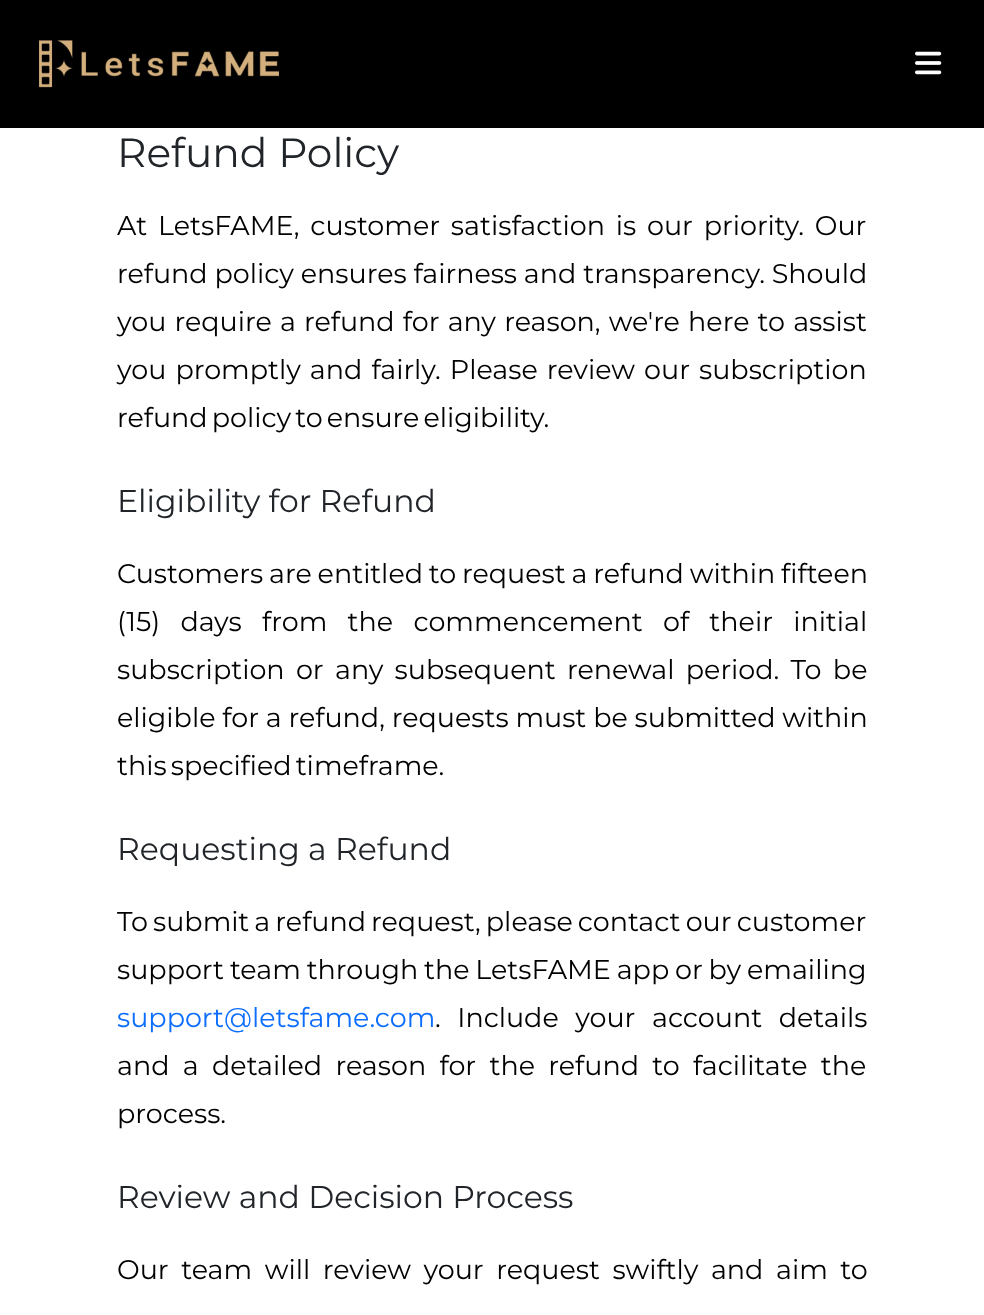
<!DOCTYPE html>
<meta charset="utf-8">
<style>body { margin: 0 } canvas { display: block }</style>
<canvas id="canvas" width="984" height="1315"></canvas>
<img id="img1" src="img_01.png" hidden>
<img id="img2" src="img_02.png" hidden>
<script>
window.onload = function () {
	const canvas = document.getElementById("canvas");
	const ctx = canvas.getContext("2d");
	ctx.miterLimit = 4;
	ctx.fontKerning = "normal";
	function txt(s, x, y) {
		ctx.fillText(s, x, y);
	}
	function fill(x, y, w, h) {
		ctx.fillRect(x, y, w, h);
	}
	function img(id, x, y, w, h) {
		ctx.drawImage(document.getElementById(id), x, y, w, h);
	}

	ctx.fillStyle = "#FFFFFF";
	fill(0, 0, 984, 1315);
	ctx.fillStyle = "#000000";
	fill(0, 0, 984, 128);
	img("img1", 39, 40, 240, 48);
	img("img2", 915, 51, 27, 24);
	ctx.font = "40.75px Montserrat";
	ctx.fillStyle = "#212529";
	txt("Refund Policy", 117, 167);
	ctx.wordSpacing = "3.75px";
	ctx.font = "27px Montserrat";
	ctx.fillStyle = "#000000";
	txt("At LetsFAME, customer satisfaction is our priority. Our", 117, 235);
	ctx.wordSpacing = "-0.25px";
	txt("refund policy ensures fairness and transparency. Should", 117, 283);
	ctx.wordSpacing = "1.1px";
	txt("you require a refund for any reason, we're here to assist", 117, 331);
	ctx.wordSpacing = "2px";
	txt("you promptly and fairly. Please review our subscription", 117, 379);
	ctx.wordSpacing = "-3px";
	txt("refund policy to ensure eligibility.", 117, 427);
	ctx.wordSpacing = "0px";
	ctx.font = "31.5px Montserrat";
	ctx.fillStyle = "#212529";
	txt("Eligibility for Refund", 117, 512);
	ctx.wordSpacing = "-1.25px";
	ctx.font = "27px Montserrat";
	ctx.fillStyle = "#000000";
	txt("Customers are entitled to request a refund within fifteen", 117, 583);
	ctx.wordSpacing = "13.25px";
	txt("(15) days from the commencement of their initial", 117, 631);
	ctx.wordSpacing = "4.25px";
	txt("subscription or any subsequent renewal period. To be", 117, 679);
	ctx.wordSpacing = "-0.25px";
	txt("eligible for a refund, requests must be submitted within", 117, 727);
	ctx.wordSpacing = "-3px";
	txt("this specified timeframe.", 117, 775);
	ctx.wordSpacing = "0px";
	ctx.font = "31.5px Montserrat";
	ctx.fillStyle = "#212529";
	txt("Requesting a Refund", 117, 860);
	ctx.wordSpacing = "-2px";
	ctx.font = "27px Montserrat";
	ctx.fillStyle = "#000000";
	txt("To submit a refund request, please contact our customer", 117, 931);
	ctx.wordSpacing = "-1.25px";
	txt("support team through the LetsFAME app or by emailing", 117, 979);
	ctx.wordSpacing = "0px";
	ctx.fillStyle = "#0D6EFD";
	txt("support@letsfame.com", 117, 1027);
	ctx.wordSpacing = "9.5px";
	ctx.fillStyle = "#000000";
	txt(". Include your account details", 435, 1027);
	ctx.wordSpacing = "6.25px";
	txt("and a detailed reason for the refund to facilitate the", 117, 1075);
	ctx.wordSpacing = "0px";
	txt("process.", 117, 1123);
	ctx.font = "31.5px Montserrat";
	ctx.fillStyle = "#212529";
	txt("Review and Decision Process", 117, 1208);
	ctx.wordSpacing = "5.5px";
	ctx.font = "27px Montserrat";
	ctx.fillStyle = "#000000";
	txt("Our team will review your request swiftly and aim to", 117, 1279);
};
</script>
